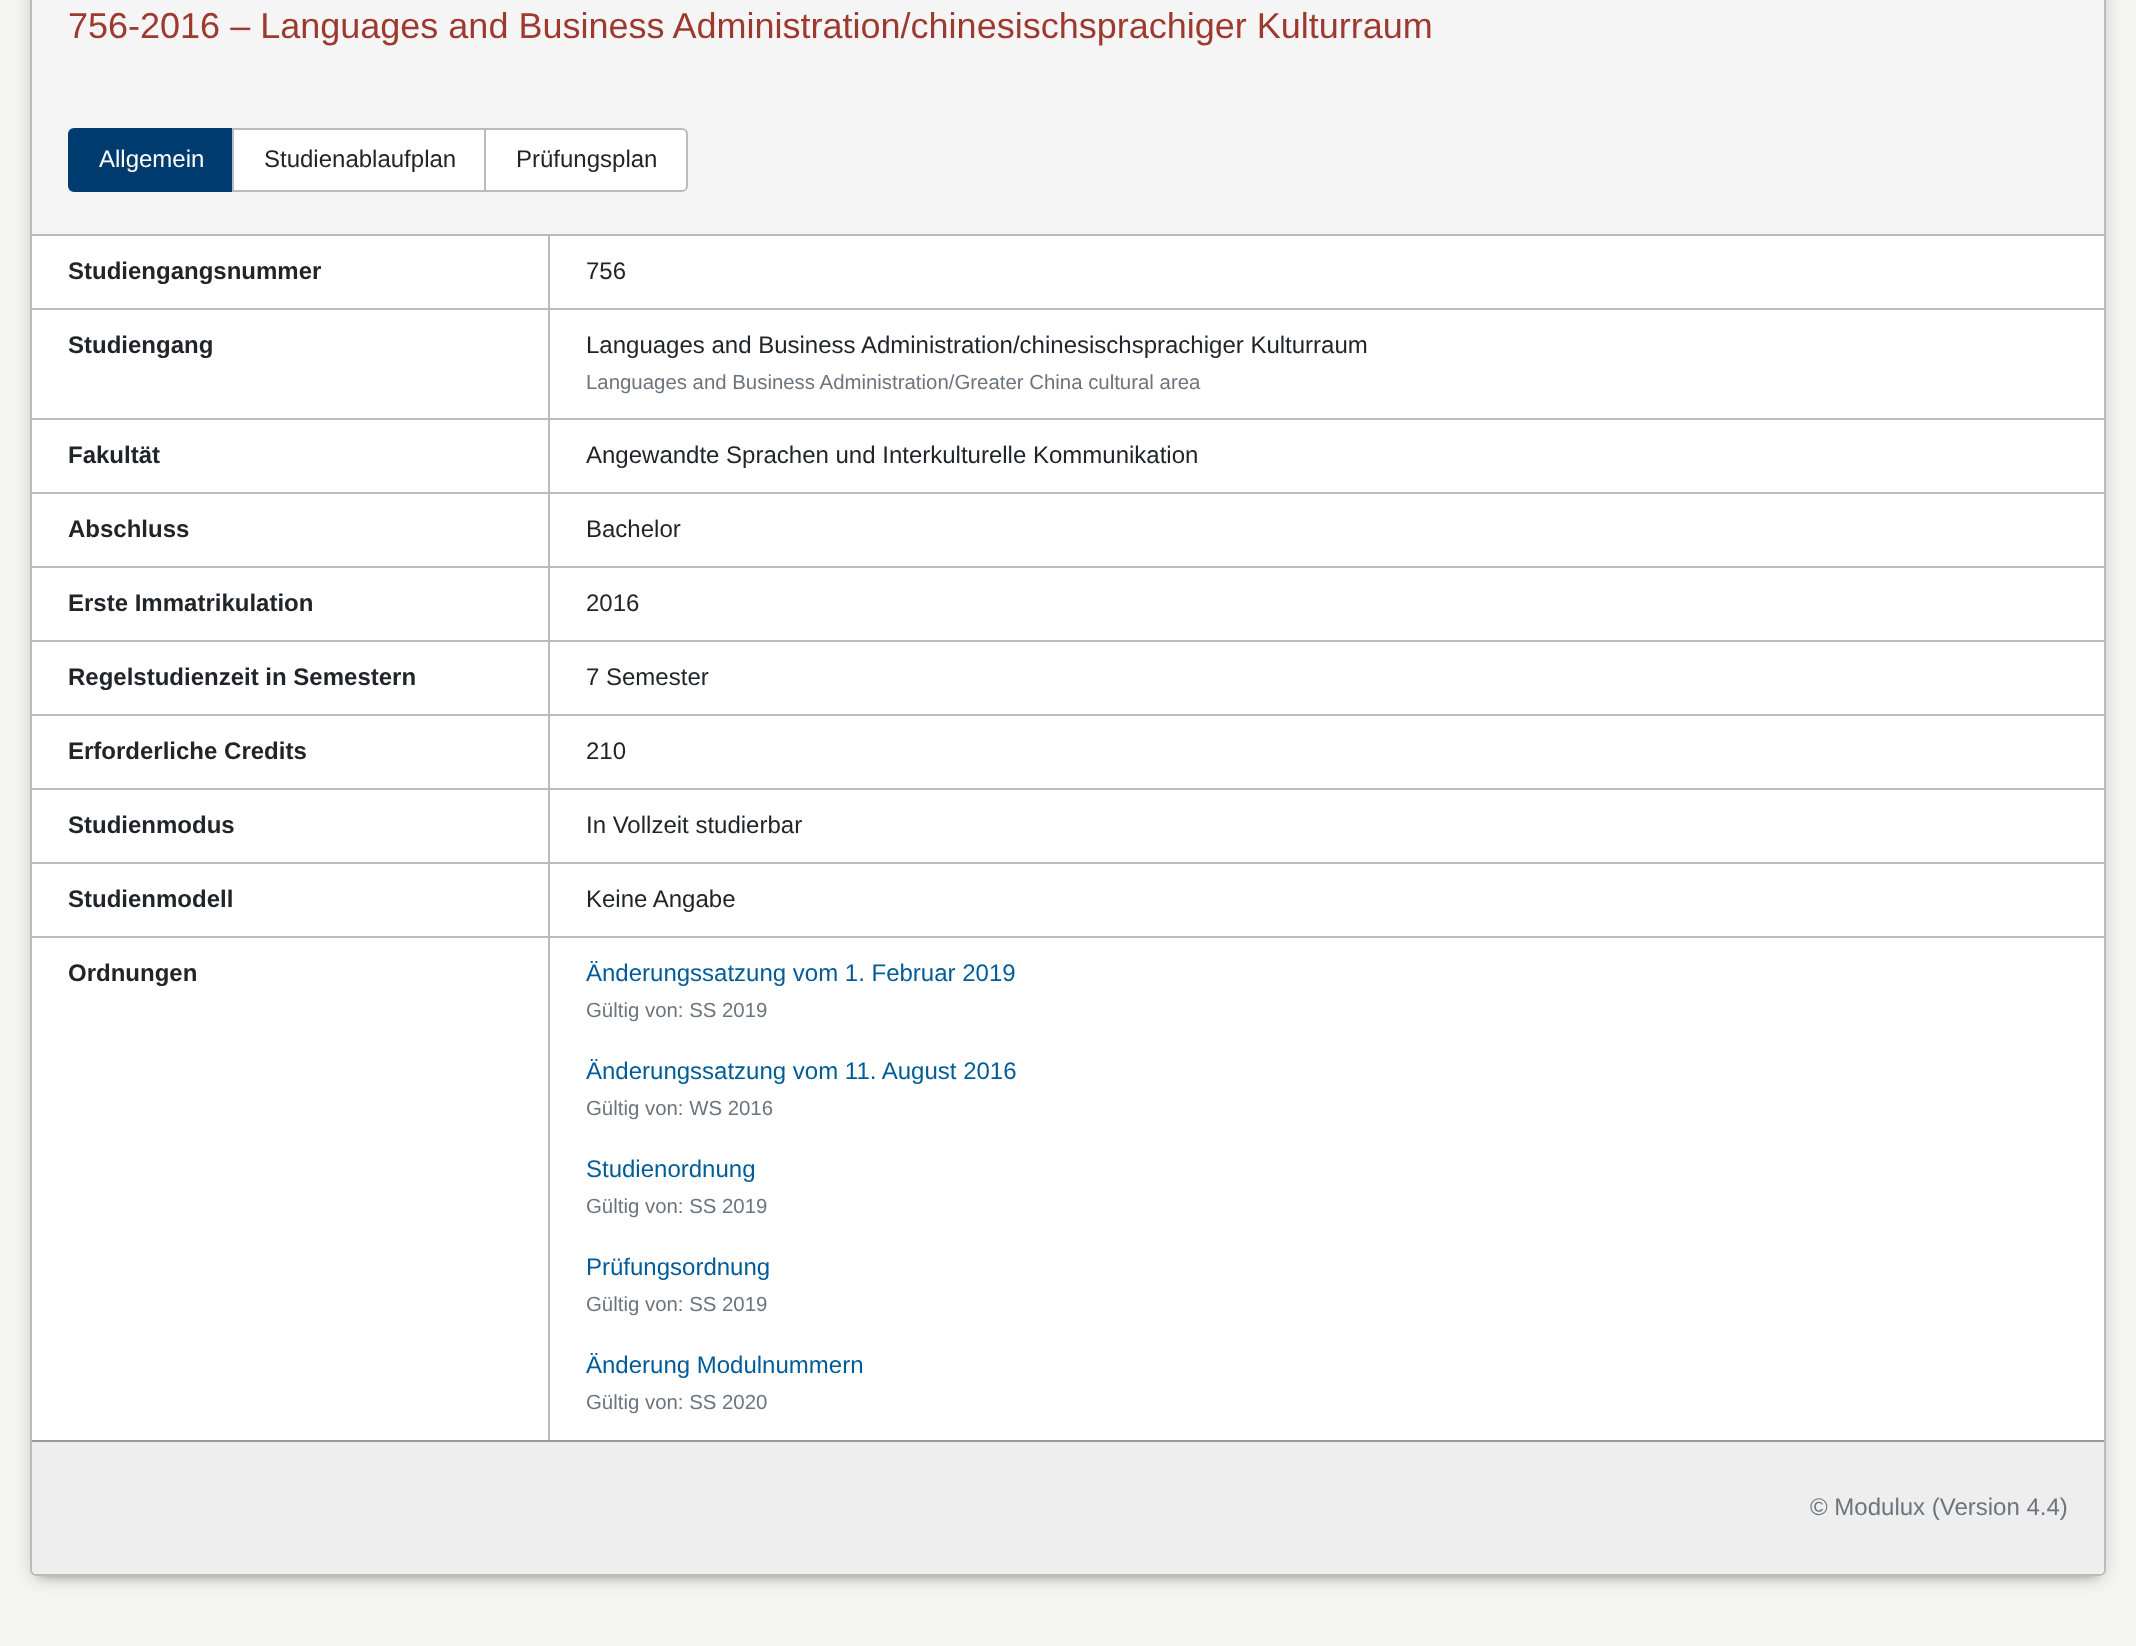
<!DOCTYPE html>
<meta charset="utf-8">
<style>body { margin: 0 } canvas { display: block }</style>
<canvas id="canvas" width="2136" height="1646"></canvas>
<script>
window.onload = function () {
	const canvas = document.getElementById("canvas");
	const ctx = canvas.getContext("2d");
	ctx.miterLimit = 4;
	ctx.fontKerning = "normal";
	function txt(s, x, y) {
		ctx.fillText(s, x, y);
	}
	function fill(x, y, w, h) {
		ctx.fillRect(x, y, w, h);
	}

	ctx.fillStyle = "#F5F5F2";
	fill(0, 0, 2136, 1646);
	ctx.fillStyle = "rgba(0, 0, 0, 0.25)";
	ctx.filter = "blur(10px)";
	ctx.beginPath();
	ctx.roundRect(34, -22, 2068, 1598, 2);
	ctx.fill();
	ctx.filter = "none";
	ctx.filter = "blur(5px)";
	ctx.beginPath();
	ctx.rect(40, -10, 2056, 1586);
	ctx.fill();
	ctx.filter = "none";
	ctx.fillStyle = "#FFFFFF";
	ctx.beginPath();
	ctx.moveTo(30, -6);
	ctx.lineTo(2106, -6);
	ctx.lineTo(2106, 1570);
	ctx.bezierCurveTo(2106, 1573.5, 2103.5, 1576, 2100, 1576);
	ctx.lineTo(36, 1576);
	ctx.bezierCurveTo(32.5, 1576, 30, 1573.5, 30, 1570);
	ctx.closePath();
	ctx.fill();
	ctx.fillStyle = "#BBBBBB";
	ctx.beginPath();
	ctx.moveTo(30, -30);
	ctx.lineTo(2106, -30);
	ctx.lineTo(2106, 1570);
	ctx.bezierCurveTo(2106, 1573, 2103, 1576, 2100, 1576);
	ctx.lineTo(36, 1576);
	ctx.bezierCurveTo(33, 1576, 30, 1573, 30, 1570);
	ctx.closePath();
	ctx.moveTo(32, -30);
	ctx.lineTo(2104, -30);
	ctx.lineTo(2104, 1570);
	ctx.bezierCurveTo(2104, 1572, 2102, 1574, 2100, 1574);
	ctx.lineTo(36, 1574);
	ctx.bezierCurveTo(34, 1574, 32, 1572, 32, 1570);
	ctx.closePath();
	ctx.fill("evenodd");
	ctx.fillStyle = "#F5F5F5";
	fill(32, 0, 2072, 234);
	ctx.fillStyle = "#003B6F";
	ctx.beginPath();
	ctx.roundRect(69, 129, 164, 62, [5, 0, 0, 5]);
	ctx.fill();
	ctx.strokeStyle = "#003B6F";
	ctx.lineWidth = 2;
	ctx.stroke();
	ctx.fillStyle = "#FFFFFF";
	ctx.beginPath();
	ctx.rect(233, 129, 252, 62);
	ctx.fill();
	ctx.strokeStyle = "#BBBBBB";
	ctx.stroke();
	ctx.beginPath();
	ctx.roundRect(485, 129, 202, 62, [0, 5, 5, 0]);
	ctx.fill();
	ctx.stroke();
	ctx.fillStyle = "#BBBBBB";
	fill(32, 234, 2074, 2);
	fill(548, 236, 2, 72);
	fill(32, 308, 2074, 2);
	fill(548, 310, 2, 108);
	fill(32, 418, 2074, 2);
	fill(548, 420, 2, 72);
	fill(32, 492, 2074, 2);
	fill(548, 494, 2, 72);
	fill(32, 566, 2074, 2);
	fill(548, 568, 2, 72);
	fill(32, 640, 2074, 2);
	fill(548, 642, 2, 72);
	fill(32, 714, 2074, 2);
	fill(548, 716, 2, 72);
	fill(32, 788, 2074, 2);
	fill(548, 790, 2, 72);
	fill(32, 862, 2074, 2);
	fill(548, 864, 2, 72);
	fill(32, 936, 2074, 2);
	fill(548, 938, 2, 502);
	ctx.fillStyle = "#EEEEEE";
	ctx.beginPath();
	ctx.roundRect(32, 1440, 2072, 134, [0, 0, 6, 6]);
	ctx.fill();
	ctx.fillStyle = "#999999";
	fill(32, 1440, 2072, 2);
	ctx.font = "36px Liberation Sans";
	ctx.fillStyle = "#9D392E";
	txt("756-2016 – Languages and Business Administration/chinesischsprachiger Kulturraum", 68, 38);
	ctx.font = "24px Liberation Sans";
	ctx.fillStyle = "#FFFFFF";
	txt("Allgemein", 99, 167);
	ctx.fillStyle = "#212529";
	txt("Studienablaufplan", 264, 167);
	txt("Prüfungsplan", 516, 167);
	ctx.font = "bold 24px Liberation Sans";
	txt("Studiengangsnummer", 68, 279);
	ctx.font = "24px Liberation Sans";
	txt("756", 586, 279);
	ctx.font = "bold 24px Liberation Sans";
	txt("Studiengang", 68, 353);
	ctx.font = "24px Liberation Sans";
	txt("Languages and Business Administration/chinesischsprachiger Kulturraum", 586, 353);
	ctx.font = "20.4px Liberation Sans";
	ctx.fillStyle = "#6C757D";
	txt("Languages and Business Administration/Greater China cultural area", 586, 389);
	ctx.font = "bold 24px Liberation Sans";
	ctx.fillStyle = "#212529";
	txt("Fakultät", 68, 463);
	ctx.font = "24px Liberation Sans";
	txt("Angewandte Sprachen und Interkulturelle Kommunikation", 586, 463);
	ctx.font = "bold 24px Liberation Sans";
	txt("Abschluss", 68, 537);
	ctx.font = "24px Liberation Sans";
	txt("Bachelor", 586, 537);
	ctx.font = "bold 24px Liberation Sans";
	txt("Erste Immatrikulation", 68, 611);
	ctx.font = "24px Liberation Sans";
	txt("2016", 586, 611);
	ctx.font = "bold 24px Liberation Sans";
	txt("Regelstudienzeit in Semestern", 68, 685);
	ctx.font = "24px Liberation Sans";
	txt("7 Semester", 586, 685);
	ctx.font = "bold 24px Liberation Sans";
	txt("Erforderliche Credits", 68, 759);
	ctx.font = "24px Liberation Sans";
	txt("210", 586, 759);
	ctx.font = "bold 24px Liberation Sans";
	txt("Studienmodus", 68, 833);
	ctx.font = "24px Liberation Sans";
	txt("In Vollzeit studierbar", 586, 833);
	ctx.font = "bold 24px Liberation Sans";
	txt("Studienmodell", 68, 907);
	ctx.font = "24px Liberation Sans";
	txt("Keine Angabe", 586, 907);
	ctx.font = "bold 24px Liberation Sans";
	txt("Ordnungen", 68, 981);
	ctx.font = "24px Liberation Sans";
	ctx.fillStyle = "#005C98";
	txt("Änderungssatzung vom 1. Februar 2019", 586, 981);
	ctx.font = "20.4px Liberation Sans";
	ctx.fillStyle = "#6C757D";
	txt("Gültig von: SS 2019", 586, 1017);
	ctx.font = "24px Liberation Sans";
	ctx.fillStyle = "#005C98";
	txt("Änderungssatzung vom 11. August 2016", 586, 1079);
	ctx.font = "20.4px Liberation Sans";
	ctx.fillStyle = "#6C757D";
	txt("Gültig von: WS 2016", 586, 1115);
	ctx.font = "24px Liberation Sans";
	ctx.fillStyle = "#005C98";
	txt("Studienordnung", 586, 1177);
	ctx.font = "20.4px Liberation Sans";
	ctx.fillStyle = "#6C757D";
	txt("Gültig von: SS 2019", 586, 1213);
	ctx.font = "24px Liberation Sans";
	ctx.fillStyle = "#005C98";
	txt("Prüfungsordnung", 586, 1275);
	ctx.font = "20.4px Liberation Sans";
	ctx.fillStyle = "#6C757D";
	txt("Gültig von: SS 2019", 586, 1311);
	ctx.font = "24px Liberation Sans";
	ctx.fillStyle = "#005C98";
	txt("Änderung Modulnummern", 586, 1373);
	ctx.font = "20.4px Liberation Sans";
	ctx.fillStyle = "#6C757D";
	txt("Gültig von: SS 2020", 586, 1409);
	ctx.font = "24px Liberation Sans";
	txt("© Modulux (Version 4.4)", 1810, 1515);
};
</script>
